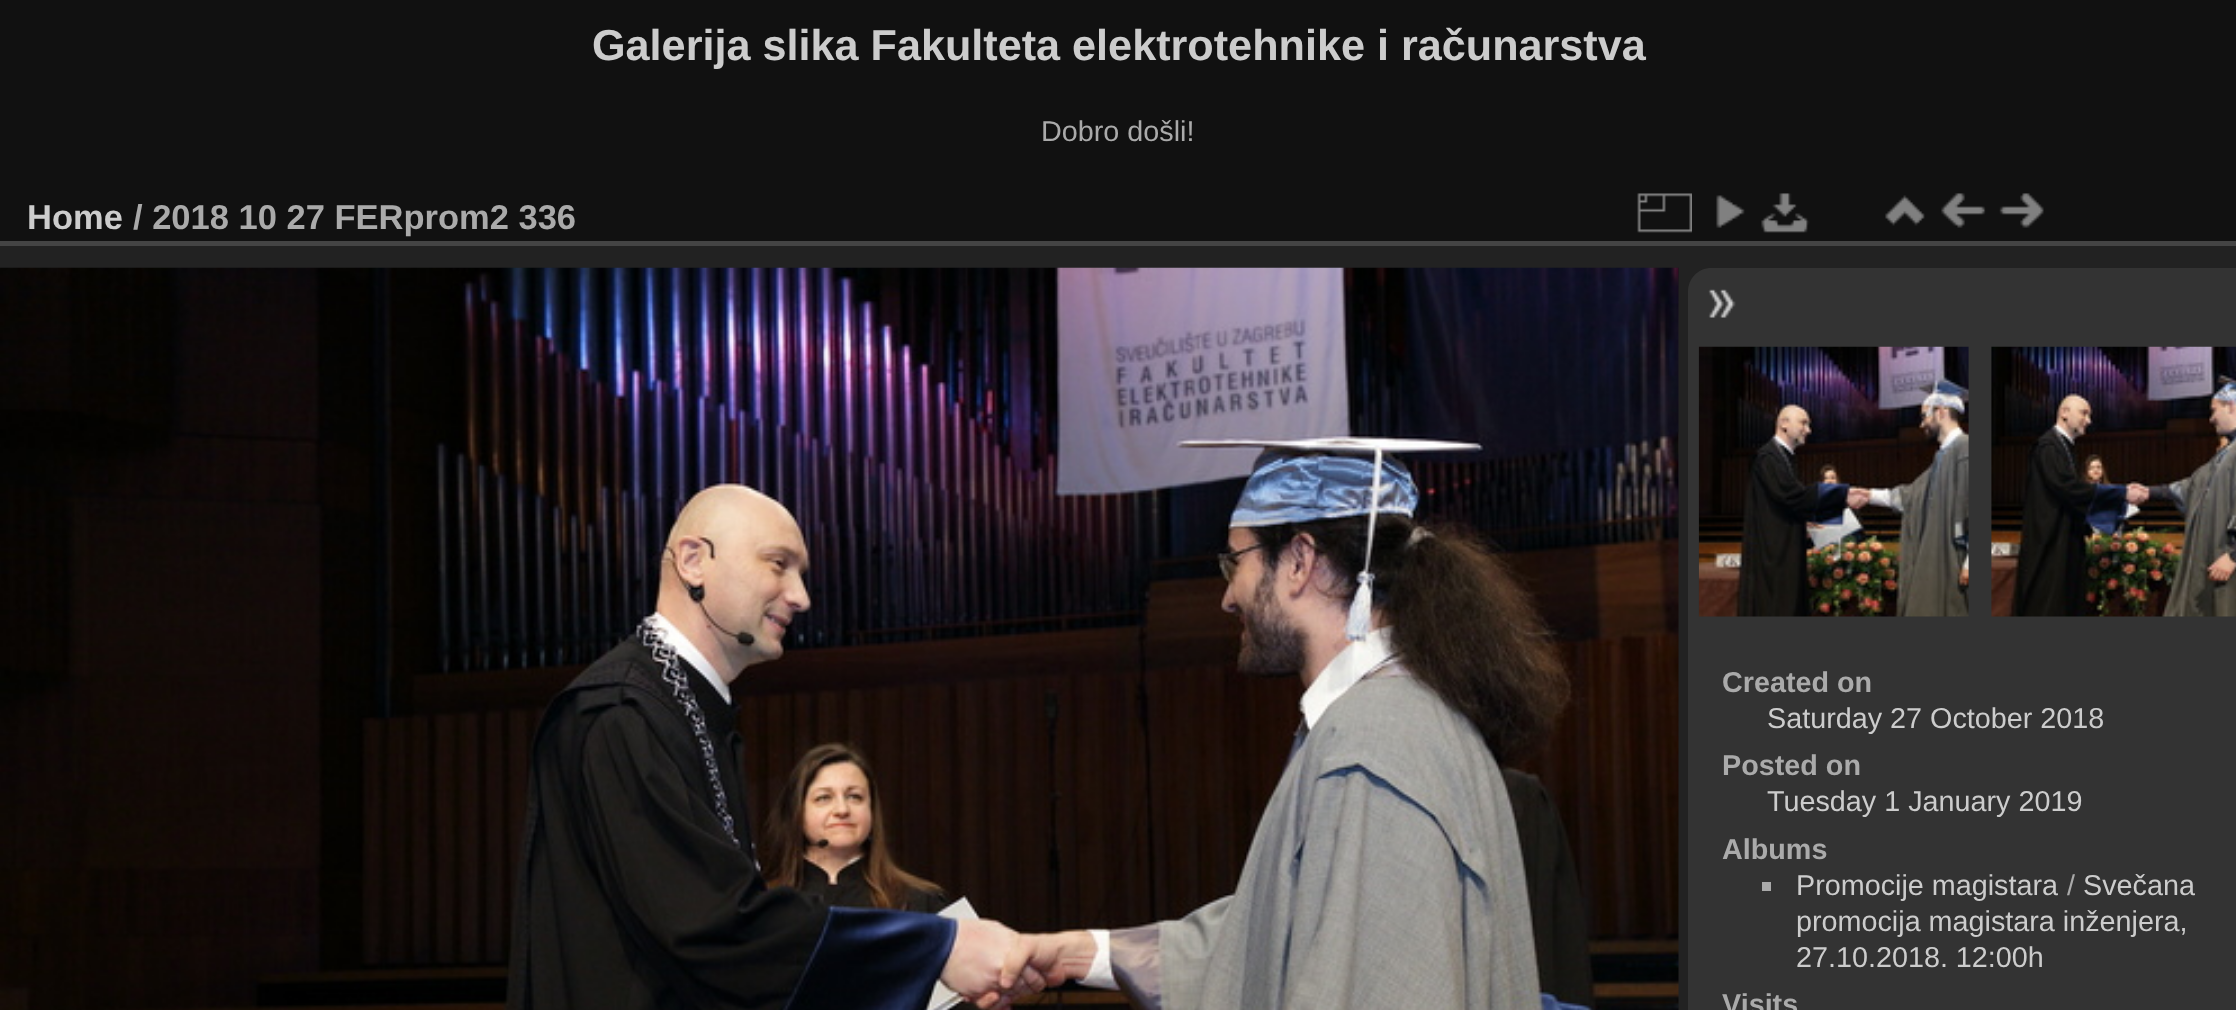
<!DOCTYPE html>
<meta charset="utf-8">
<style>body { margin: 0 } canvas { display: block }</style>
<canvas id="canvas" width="2236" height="1010"></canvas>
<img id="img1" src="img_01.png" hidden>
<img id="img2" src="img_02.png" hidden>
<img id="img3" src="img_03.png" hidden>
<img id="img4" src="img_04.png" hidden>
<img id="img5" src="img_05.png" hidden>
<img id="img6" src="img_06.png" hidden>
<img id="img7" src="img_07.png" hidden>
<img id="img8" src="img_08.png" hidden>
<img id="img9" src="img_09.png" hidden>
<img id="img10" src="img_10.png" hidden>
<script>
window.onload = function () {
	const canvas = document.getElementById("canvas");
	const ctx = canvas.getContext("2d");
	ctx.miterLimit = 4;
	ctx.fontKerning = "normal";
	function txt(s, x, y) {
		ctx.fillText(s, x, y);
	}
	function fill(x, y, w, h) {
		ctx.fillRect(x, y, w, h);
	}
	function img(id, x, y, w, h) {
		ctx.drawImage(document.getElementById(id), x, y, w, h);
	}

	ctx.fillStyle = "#111111";
	fill(0, 0, 2236, 1010);
	ctx.fillStyle = "#222222";
	fill(0, 246, 2236, 764);
	ctx.fillStyle = "#444444";
	fill(0, 241, 2236, 5);
	img("img1", 1637, 193, 55, 40);
	img("img2", 1716, 195, 29, 33);
	img("img3", 1761, 193, 49, 40);
	img("img4", 1885, 195, 40, 31);
	img("img5", 1941, 193, 45, 35);
	img("img6", 1999, 193, 45, 35);
	img("img7", 0, 267, 1679, 743);
	ctx.fillStyle = "#333333";
	ctx.beginPath();
	ctx.moveTo(1711, 268);
	ctx.lineTo(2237, 268);
	ctx.lineTo(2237, 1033);
	ctx.lineTo(1711, 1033);
	ctx.bezierCurveTo(1698.5, 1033, 1688, 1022.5, 1688, 1010);
	ctx.lineTo(1688, 291);
	ctx.bezierCurveTo(1688, 278.5, 1698.5, 268, 1711, 268);
	ctx.closePath();
	ctx.fill();
	img("img8", 1708, 289, 28, 29);
	img("img9", 1698, 346, 271, 271);
	img("img10", 1991, 346, 245, 271);
	ctx.fillStyle = "#AAAAAA";
	fill(1762, 882, 9, 9);
	ctx.font = "bold 43.2px Liberation Sans";
	ctx.fillStyle = "#CCCCCC";
	txt("Galerija slika Fakulteta elektrotehnike i računarstva", 592, 60);
	ctx.font = "28.75px Liberation Sans";
	ctx.fillStyle = "#AAAAAA";
	txt("Dobro došli!", 1041, 141);
	ctx.font = "bold 34.5px Liberation Sans";
	ctx.fillStyle = "#CCCCCC";
	txt("Home", 27, 229);
	ctx.fillStyle = "#AAAAAA";
	txt("/ 2018 10 27 FERprom2 336", 133, 229);
	ctx.font = "bold 28.75px Liberation Sans";
	txt("Created on", 1722, 692);
	ctx.font = "28.75px Liberation Sans";
	ctx.fillStyle = "#CCCCCC";
	txt("Saturday 27 October 2018", 1767, 728);
	ctx.font = "bold 28.75px Liberation Sans";
	ctx.fillStyle = "#AAAAAA";
	txt("Posted on", 1722, 775);
	ctx.font = "28.75px Liberation Sans";
	ctx.fillStyle = "#CCCCCC";
	txt("Tuesday 1 January 2019", 1767, 811);
	ctx.font = "bold 28.75px Liberation Sans";
	ctx.fillStyle = "#AAAAAA";
	txt("Albums", 1722, 859);
	ctx.font = "28.75px Liberation Sans";
	ctx.fillStyle = "#CCCCCC";
	txt("Promocije magistara", 1796, 895);
	ctx.fillStyle = "#AAAAAA";
	txt("/", 2067, 895);
	ctx.fillStyle = "#CCCCCC";
	txt("Svečana", 2083, 895);
	txt("promocija magistara inženjera,", 1796, 931);
	txt("27.10.2018. 12:00h", 1796, 967);
	ctx.font = "bold 28.75px Liberation Sans";
	ctx.fillStyle = "#AAAAAA";
	txt("Visits", 1722, 1014);
};
</script>
